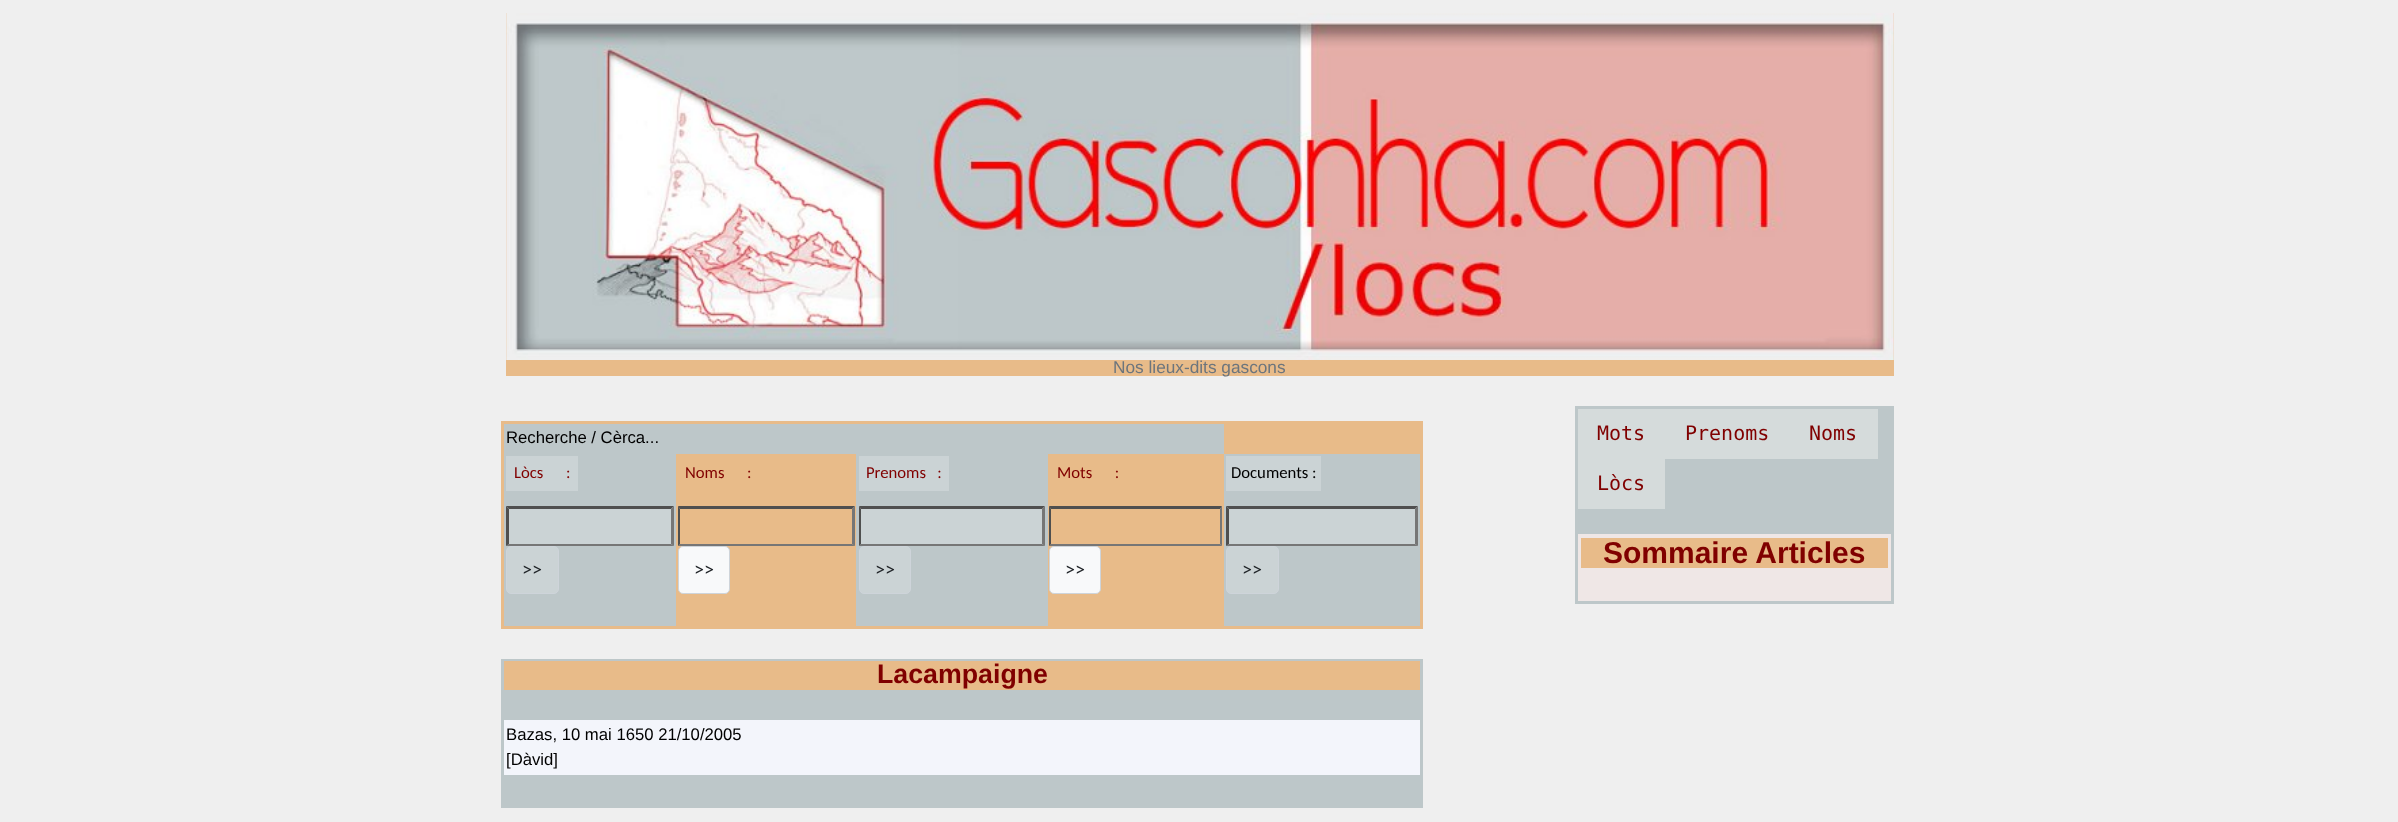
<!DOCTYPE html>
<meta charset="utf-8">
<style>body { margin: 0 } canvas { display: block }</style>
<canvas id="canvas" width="2398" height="822"></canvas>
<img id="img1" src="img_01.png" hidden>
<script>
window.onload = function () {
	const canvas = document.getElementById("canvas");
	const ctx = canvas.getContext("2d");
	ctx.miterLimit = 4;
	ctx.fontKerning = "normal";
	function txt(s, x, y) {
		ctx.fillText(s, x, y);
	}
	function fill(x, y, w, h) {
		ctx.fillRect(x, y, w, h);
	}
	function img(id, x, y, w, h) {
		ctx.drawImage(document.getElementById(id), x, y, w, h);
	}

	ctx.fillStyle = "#EFEFEF";
	fill(0, 0, 2398, 822);
	ctx.fillStyle = "#E8BB89";
	fill(506, 13, 1388, 363);
	img("img1", 506, 13, 1388, 347);
	fill(501, 421, 922, 208);
	ctx.fillStyle = "#BDC7C9";
	fill(504, 424, 720, 30);
	fill(504, 454, 172, 172);
	ctx.fillStyle = "#CBD3D5";
	fill(506, 456, 72, 35);
	fill(506, 506, 168, 40);
	ctx.fillStyle = "#4F4F4F";
	ctx.beginPath();
	ctx.moveTo(506, 506);
	ctx.lineTo(674, 506);
	ctx.lineTo(671, 509);
	ctx.lineTo(509, 509);
	ctx.closePath();
	ctx.fill();
	ctx.fillStyle = "#767676";
	ctx.beginPath();
	ctx.moveTo(674, 506);
	ctx.lineTo(674, 546);
	ctx.lineTo(671, 544);
	ctx.lineTo(671, 509);
	ctx.closePath();
	ctx.fill();
	ctx.beginPath();
	ctx.moveTo(674, 546);
	ctx.lineTo(506, 546);
	ctx.lineTo(509, 544);
	ctx.lineTo(671, 544);
	ctx.closePath();
	ctx.fill();
	ctx.fillStyle = "#4F4F4F";
	ctx.beginPath();
	ctx.moveTo(506, 546);
	ctx.lineTo(506, 506);
	ctx.lineTo(509, 509);
	ctx.lineTo(509, 544);
	ctx.closePath();
	ctx.fill();
	ctx.fillStyle = "#CBD3D5";
	ctx.beginPath();
	ctx.roundRect(506.5, 546.5, 52, 47, 4.5);
	ctx.fill();
	ctx.strokeStyle = "#CED4DA";
	ctx.stroke();
	ctx.fillStyle = "#4F4F4F";
	ctx.beginPath();
	ctx.moveTo(678, 506);
	ctx.lineTo(855, 506);
	ctx.lineTo(852, 509);
	ctx.lineTo(680, 509);
	ctx.closePath();
	ctx.fill();
	ctx.fillStyle = "#767676";
	ctx.beginPath();
	ctx.moveTo(855, 506);
	ctx.lineTo(855, 546);
	ctx.lineTo(852, 544);
	ctx.lineTo(852, 509);
	ctx.closePath();
	ctx.fill();
	ctx.beginPath();
	ctx.moveTo(855, 546);
	ctx.lineTo(678, 546);
	ctx.lineTo(680, 544);
	ctx.lineTo(852, 544);
	ctx.closePath();
	ctx.fill();
	ctx.fillStyle = "#4F4F4F";
	ctx.beginPath();
	ctx.moveTo(678, 546);
	ctx.lineTo(678, 506);
	ctx.lineTo(680, 509);
	ctx.lineTo(680, 544);
	ctx.closePath();
	ctx.fill();
	ctx.fillStyle = "#F8F9FA";
	ctx.beginPath();
	ctx.roundRect(678.5, 546.5, 51, 47, 4.5);
	ctx.fill();
	ctx.stroke();
	ctx.fillStyle = "#BDC7C9";
	fill(856, 454, 192, 172);
	ctx.fillStyle = "#CBD3D5";
	fill(859, 456, 90, 35);
	fill(859, 506, 186, 40);
	ctx.fillStyle = "#4F4F4F";
	ctx.beginPath();
	ctx.moveTo(859, 506);
	ctx.lineTo(1045, 506);
	ctx.lineTo(1042, 509);
	ctx.lineTo(861, 509);
	ctx.closePath();
	ctx.fill();
	ctx.fillStyle = "#767676";
	ctx.beginPath();
	ctx.moveTo(1045, 506);
	ctx.lineTo(1045, 546);
	ctx.lineTo(1042, 544);
	ctx.lineTo(1042, 509);
	ctx.closePath();
	ctx.fill();
	ctx.beginPath();
	ctx.moveTo(1045, 546);
	ctx.lineTo(859, 546);
	ctx.lineTo(861, 544);
	ctx.lineTo(1042, 544);
	ctx.closePath();
	ctx.fill();
	ctx.fillStyle = "#4F4F4F";
	ctx.beginPath();
	ctx.moveTo(859, 546);
	ctx.lineTo(859, 506);
	ctx.lineTo(861, 509);
	ctx.lineTo(861, 544);
	ctx.closePath();
	ctx.fill();
	ctx.fillStyle = "#CBD3D5";
	ctx.beginPath();
	ctx.roundRect(859.5, 546.5, 51, 47, 4.5);
	ctx.fill();
	ctx.stroke();
	ctx.fillStyle = "#4F4F4F";
	ctx.beginPath();
	ctx.moveTo(1049, 506);
	ctx.lineTo(1222, 506);
	ctx.lineTo(1220, 509);
	ctx.lineTo(1051, 509);
	ctx.closePath();
	ctx.fill();
	ctx.fillStyle = "#767676";
	ctx.beginPath();
	ctx.moveTo(1222, 506);
	ctx.lineTo(1222, 546);
	ctx.lineTo(1220, 544);
	ctx.lineTo(1220, 509);
	ctx.closePath();
	ctx.fill();
	ctx.beginPath();
	ctx.moveTo(1222, 546);
	ctx.lineTo(1049, 546);
	ctx.lineTo(1051, 544);
	ctx.lineTo(1220, 544);
	ctx.closePath();
	ctx.fill();
	ctx.fillStyle = "#4F4F4F";
	ctx.beginPath();
	ctx.moveTo(1049, 546);
	ctx.lineTo(1049, 506);
	ctx.lineTo(1051, 509);
	ctx.lineTo(1051, 544);
	ctx.closePath();
	ctx.fill();
	ctx.fillStyle = "#F8F9FA";
	ctx.beginPath();
	ctx.roundRect(1049.5, 546.5, 51, 47, 4.5);
	ctx.fill();
	ctx.stroke();
	ctx.fillStyle = "#BDC7C9";
	fill(1224, 454, 196, 172);
	ctx.fillStyle = "#CBD3D5";
	fill(1226, 456, 95, 35);
	fill(1226, 506, 192, 40);
	ctx.fillStyle = "#4F4F4F";
	ctx.beginPath();
	ctx.moveTo(1226, 506);
	ctx.lineTo(1418, 506);
	ctx.lineTo(1415, 509);
	ctx.lineTo(1229, 509);
	ctx.closePath();
	ctx.fill();
	ctx.fillStyle = "#767676";
	ctx.beginPath();
	ctx.moveTo(1418, 506);
	ctx.lineTo(1418, 546);
	ctx.lineTo(1415, 544);
	ctx.lineTo(1415, 509);
	ctx.closePath();
	ctx.fill();
	ctx.beginPath();
	ctx.moveTo(1418, 546);
	ctx.lineTo(1226, 546);
	ctx.lineTo(1229, 544);
	ctx.lineTo(1415, 544);
	ctx.closePath();
	ctx.fill();
	ctx.fillStyle = "#4F4F4F";
	ctx.beginPath();
	ctx.moveTo(1226, 546);
	ctx.lineTo(1226, 506);
	ctx.lineTo(1229, 509);
	ctx.lineTo(1229, 544);
	ctx.closePath();
	ctx.fill();
	ctx.fillStyle = "#CBD3D5";
	ctx.beginPath();
	ctx.roundRect(1226.5, 546.5, 52, 47, 4.5);
	ctx.fill();
	ctx.stroke();
	ctx.fillStyle = "#BDC7C9";
	fill(501, 659, 922, 149);
	ctx.fillStyle = "#E8BB89";
	fill(504, 661, 916, 29);
	ctx.fillStyle = "#F3F5FB";
	fill(504, 720, 916, 55);
	ctx.fillStyle = "#BDC7C9";
	fill(1575, 406, 319, 198);
	ctx.fillStyle = "#D5DBDB";
	fill(1578, 409, 300, 50);
	fill(1578, 459, 87, 50);
	ctx.fillStyle = "#EFE7E6";
	fill(1578, 534, 313, 67);
	ctx.fillStyle = "#E8BB89";
	fill(1581, 538, 307, 30);
	ctx.font = "17.25px Liberation Sans";
	ctx.fillStyle = "#6C757D";
	txt("Nos lieux-dits gascons", 1113, 373);
	ctx.font = "16.7px Liberation Sans";
	ctx.fillStyle = "#000000";
	txt("Recherche / Cèrca...", 506, 443);
	ctx.font = "16.7px Carlito";
	ctx.fillStyle = "#800000";
	txt("Lòcs      :", 514, 478);
	ctx.font = "20px Carlito";
	ctx.fillStyle = "#212529";
	txt(">>", 522, 576);
	ctx.font = "16.7px Carlito";
	ctx.fillStyle = "#800000";
	txt("Noms      :", 685, 478);
	ctx.font = "20px Carlito";
	ctx.fillStyle = "#212529";
	txt(">>", 694, 576);
	ctx.font = "16.7px Carlito";
	ctx.fillStyle = "#800000";
	txt("Prenoms   :", 866, 478);
	ctx.font = "20px Carlito";
	ctx.fillStyle = "#212529";
	txt(">>", 875, 576);
	ctx.font = "16.7px Carlito";
	ctx.fillStyle = "#800000";
	txt("Mots      :", 1057, 478);
	ctx.font = "20px Carlito";
	ctx.fillStyle = "#212529";
	txt(">>", 1065, 576);
	ctx.font = "16.7px Carlito";
	ctx.fillStyle = "#000000";
	txt("Documents :", 1231, 478);
	ctx.font = "20px Carlito";
	ctx.fillStyle = "#212529";
	txt(">>", 1242, 576);
	ctx.font = "bold 26.75px Liberation Sans";
	ctx.fillStyle = "#800000";
	txt("Lacampaigne", 877, 683);
	ctx.font = "16.7px Liberation Sans";
	ctx.fillStyle = "#000000";
	txt("Bazas, 10 mai 1650 21/10/2005", 506, 740);
	txt("[Dàvid]", 506, 765);
	ctx.font = "20px DejaVu Sans Mono";
	ctx.fillStyle = "#800000";
	txt("Mots", 1597, 440);
	txt("Prenoms", 1685, 440);
	txt("Noms", 1809, 440);
	txt("Lòcs", 1597, 490);
	ctx.font = "bold 30px Liberation Sans";
	txt("Sommaire Articles", 1603, 563);
};
</script>
